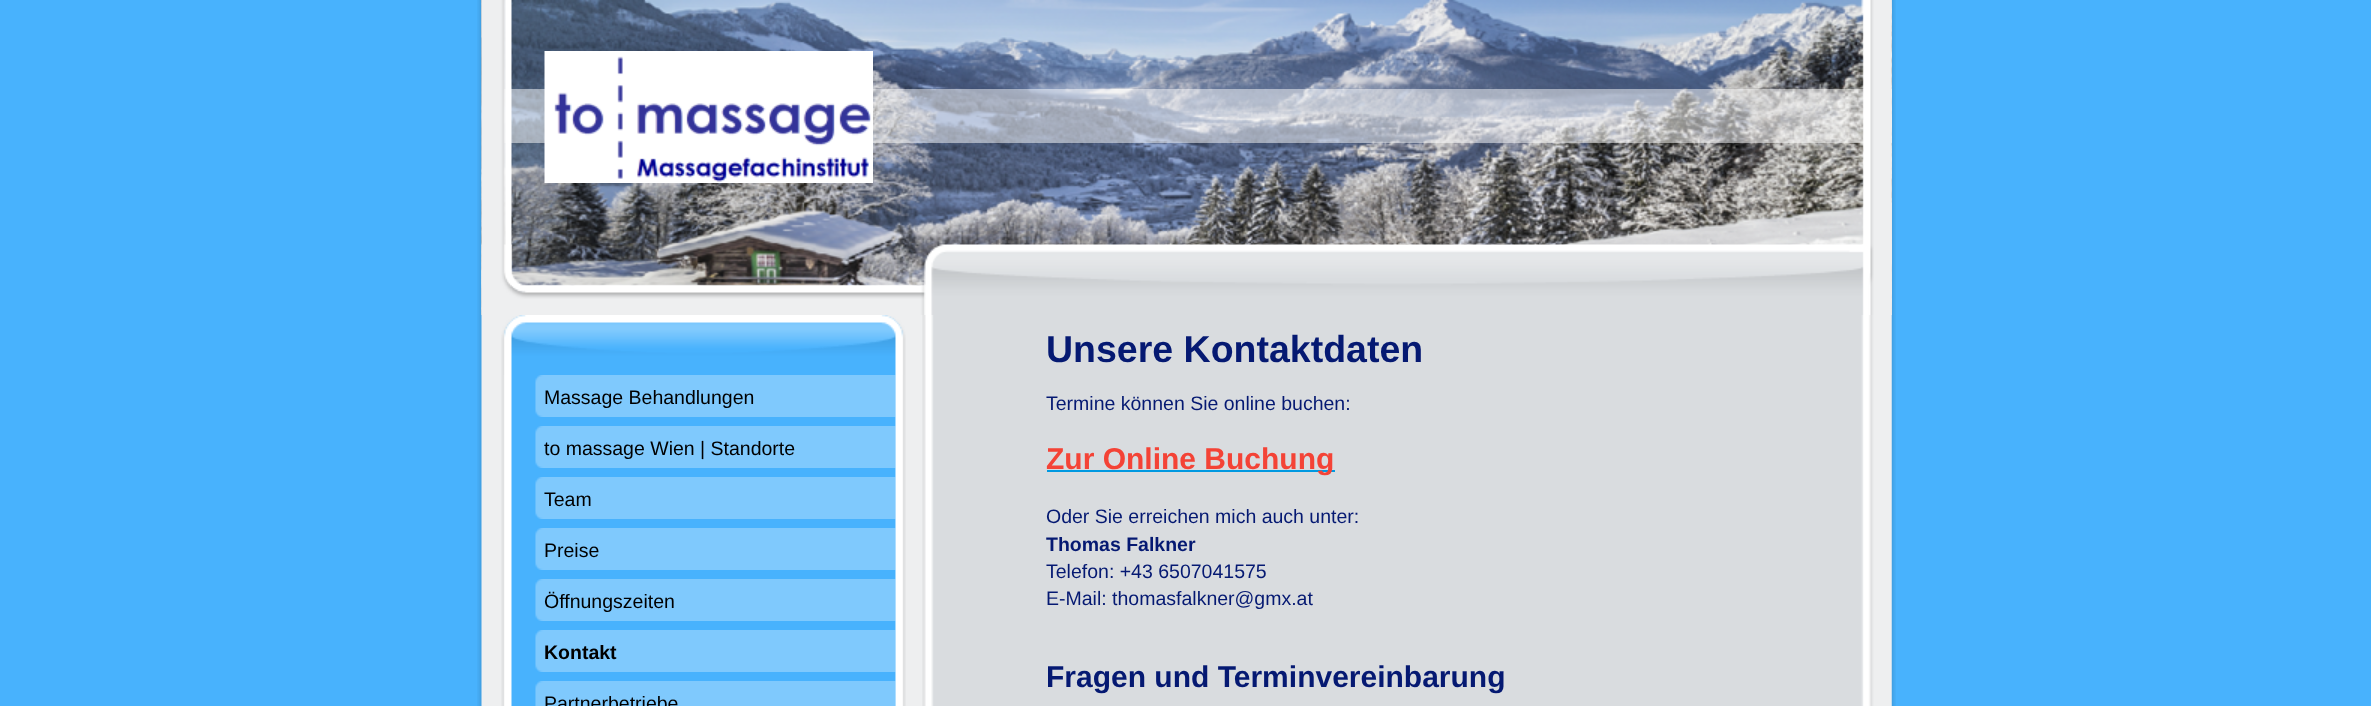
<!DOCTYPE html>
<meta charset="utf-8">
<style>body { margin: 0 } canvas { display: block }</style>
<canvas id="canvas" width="2371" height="706"></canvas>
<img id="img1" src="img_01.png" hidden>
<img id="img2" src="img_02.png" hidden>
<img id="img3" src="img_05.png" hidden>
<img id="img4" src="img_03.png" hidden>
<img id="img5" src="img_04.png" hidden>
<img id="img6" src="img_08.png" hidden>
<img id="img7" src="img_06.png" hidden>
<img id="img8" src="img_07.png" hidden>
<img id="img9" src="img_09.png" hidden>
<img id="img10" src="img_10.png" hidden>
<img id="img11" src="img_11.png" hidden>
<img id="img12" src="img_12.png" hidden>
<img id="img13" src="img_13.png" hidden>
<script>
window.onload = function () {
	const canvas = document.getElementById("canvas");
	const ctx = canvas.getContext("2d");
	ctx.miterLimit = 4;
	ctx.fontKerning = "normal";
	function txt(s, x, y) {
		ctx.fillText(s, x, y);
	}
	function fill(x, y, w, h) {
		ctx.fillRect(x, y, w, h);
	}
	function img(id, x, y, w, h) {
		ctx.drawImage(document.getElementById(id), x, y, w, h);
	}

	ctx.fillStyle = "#48B2FD";
	fill(0, 0, 2371, 706);
	img("img1", 477, 0, 1419, 706);
	img("img2", 481, 0, 1, 315);
	ctx.fillStyle = "#EEEEEE";
	fill(1891, 0, 1, 315);
	img("img3", 481, 0, 1, 38);
	img("img4", 481, 0, 1411, 315);
	ctx.fillStyle = "rgba(255, 255, 255, 0.5)";
	fill(503, 89, 1389, 54);
	img("img5", 544, 51, 329, 132);
	img("img6", 481, 244, 1411, 71);
	img("img7", 481, 0, 31, 315);
	img("img8", 1861, 0, 31, 297);
	ctx.fillStyle = "#48B2FD";
	fill(503, 315, 401, 391);
	img("img9", 501, 315, 405, 60);
	img("img10", 501, 375, 405, 331);
	img("img11", 535, 375, 361, 42);
	img("img11", 535, 426, 361, 42);
	img("img11", 535, 477, 361, 42);
	img("img11", 535, 528, 361, 42);
	img("img11", 535, 579, 361, 42);
	img("img11", 535, 630, 361, 42);
	img("img12", 535, 681, 361, 25);
	img("img13", 922, 315, 970, 391);
	ctx.fillStyle = "#0099E1";
	fill(1047, 470, 288, 2);
	ctx.font = "19.5px Liberation Sans";
	ctx.fillStyle = "#000000";
	txt("Massage Behandlungen", 544, 404);
	txt("to massage Wien | Standorte", 544, 455);
	txt("Team", 544, 506);
	txt("Preise", 544, 557);
	txt("Öffnungszeiten", 544, 608);
	ctx.font = "bold 19.5px Liberation Sans";
	txt("Kontakt", 544, 659);
	ctx.font = "19.5px Liberation Sans";
	txt("Partnerbetriebe", 544, 710);
	ctx.font = "bold 37.5px Liberation Sans";
	ctx.fillStyle = "#051972";
	txt("Unsere Kontaktdaten", 1046, 362);
	ctx.font = "19.5px Liberation Sans";
	txt("Termine können Sie online buchen:", 1046, 410);
	ctx.font = "bold 30px Liberation Sans";
	ctx.fillStyle = "#F44336";
	txt("Zur Online Buchung", 1046, 469);
	ctx.font = "19.5px Liberation Sans";
	ctx.fillStyle = "#051972";
	txt("Oder Sie erreichen mich auch unter:", 1046, 523);
	ctx.font = "bold 19.5px Liberation Sans";
	txt("Thomas Falkner", 1046, 551);
	ctx.font = "19.5px Liberation Sans";
	txt("Telefon: +43 6507041575", 1046, 578);
	txt("E-Mail: thomasfalkner@gmx.at", 1046, 605);
	ctx.font = "bold 30px Liberation Sans";
	txt("Fragen und Terminvereinbarung", 1046, 687);
};
</script>
